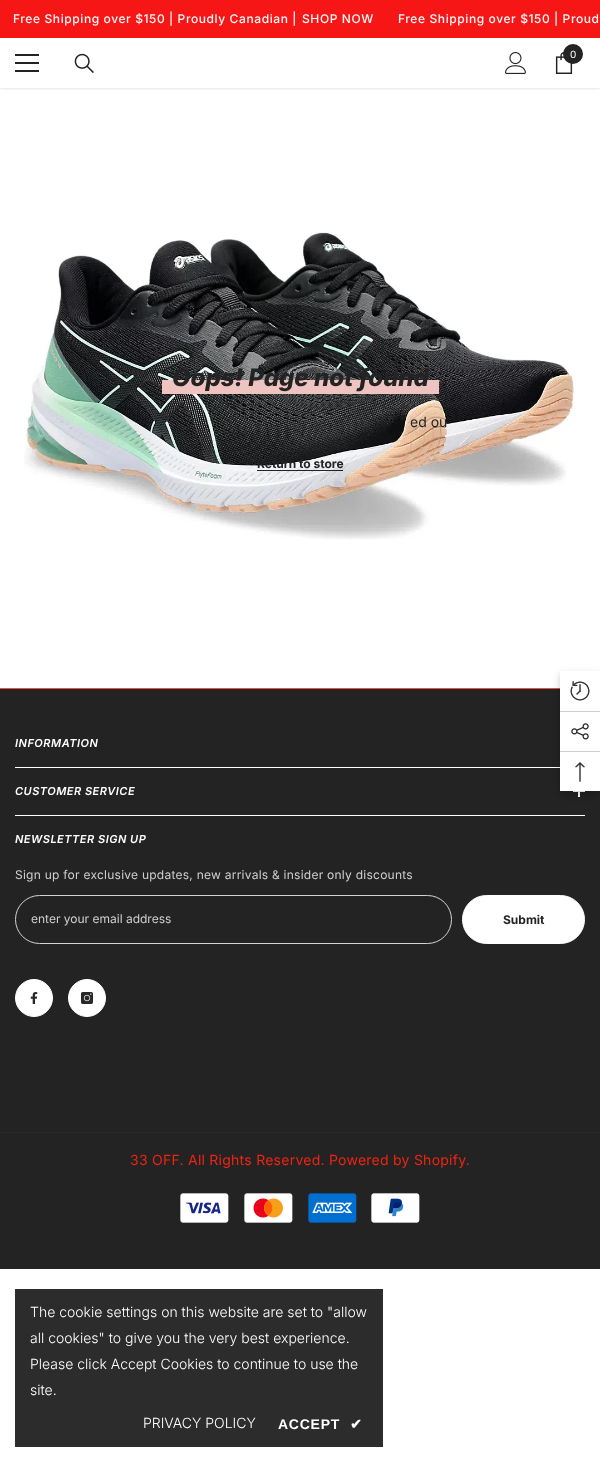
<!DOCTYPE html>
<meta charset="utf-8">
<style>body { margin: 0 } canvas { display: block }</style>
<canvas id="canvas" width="600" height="1462"></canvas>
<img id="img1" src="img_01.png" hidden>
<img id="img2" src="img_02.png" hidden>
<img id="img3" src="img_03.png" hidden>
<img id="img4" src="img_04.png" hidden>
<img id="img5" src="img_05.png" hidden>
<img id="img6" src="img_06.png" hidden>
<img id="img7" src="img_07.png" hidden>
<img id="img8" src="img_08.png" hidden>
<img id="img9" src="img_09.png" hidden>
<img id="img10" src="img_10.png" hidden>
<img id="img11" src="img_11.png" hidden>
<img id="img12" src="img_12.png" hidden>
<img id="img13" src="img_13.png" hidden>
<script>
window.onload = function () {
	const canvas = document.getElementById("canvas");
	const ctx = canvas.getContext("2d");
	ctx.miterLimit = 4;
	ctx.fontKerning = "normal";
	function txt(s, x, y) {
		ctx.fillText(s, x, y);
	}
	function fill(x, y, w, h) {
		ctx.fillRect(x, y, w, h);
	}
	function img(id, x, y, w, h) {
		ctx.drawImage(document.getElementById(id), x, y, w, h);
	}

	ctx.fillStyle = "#FFFFFF";
	fill(0, 0, 600, 1462);
	ctx.fillStyle = "#F71616";
	fill(0, 0, 600, 38);
	ctx.save();
	ctx.beginPath();
	ctx.rect(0, 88, 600, 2);
	ctx.clip();
	ctx.fillStyle = "rgba(0, 0, 0, 0.1)";
	ctx.filter = "blur(1.5px)";
	ctx.beginPath();
	ctx.rect(0, 39, 600, 50);
	ctx.fill();
	ctx.filter = "none";
	ctx.restore();
	ctx.fillStyle = "#232323";
	fill(15, 62, 24, 2);
	fill(15, 54, 24, 2);
	fill(15, 70, 24, 2);
	img("img1", 74, 53, 20, 20);
	img("img2", 505, 52, 21, 22);
	img("img3", 555, 52, 18, 22);
	ctx.beginPath();
	ctx.arc(573, 54, 10, 0, Math.PI * 2);
	ctx.fill();
	img("img4", 24, 232, 552, 308);
	ctx.fillStyle = "#EFC3C0";
	fill(162, 380, 277, 14);
	ctx.fillStyle = "#232323";
	fill(257, 470, 86, 1);
	fill(0, 689, 600, 443);
	ctx.fillStyle = "#E95144";
	fill(0, 688, 560, 1);
	ctx.fillStyle = "#FFFFFF";
	fill(15, 767, 545, 1);
	fill(15, 815, 570, 1);
	fill(578, 785, 2, 12);
	fill(573, 791, 12, 1);
	ctx.beginPath();
	ctx.roundRect(15.5, 895.5, 436, 48, 24);
	ctx.strokeStyle = "#D3D3D3";
	ctx.stroke();
	ctx.beginPath();
	ctx.roundRect(462.5, 895.5, 122, 48, 24);
	ctx.fill();
	ctx.strokeStyle = "#FFFFFF";
	ctx.stroke();
	ctx.beginPath();
	ctx.arc(34, 998, 18.5, 0, Math.PI * 2);
	ctx.fill();
	ctx.stroke();
	img("img5", 30, 992, 8, 12);
	ctx.beginPath();
	ctx.arc(87, 998, 18.5, 0, Math.PI * 2);
	ctx.fill();
	ctx.stroke();
	img("img6", 81, 992, 12, 12);
	ctx.fillStyle = "#232323";
	fill(0, 1133, 600, 136);
	ctx.fillStyle = "#282828";
	fill(0, 1132, 600, 1);
	img("img7", 180, 1193, 49, 30);
	img("img8", 244, 1193, 49, 30);
	img("img9", 308, 1193, 49, 30);
	img("img10", 371, 1193, 49, 30);
	ctx.fillStyle = "rgba(0, 0, 0, 0.2)";
	ctx.filter = "blur(3.5px)";
	ctx.beginPath();
	ctx.rect(560, 674, 40, 120);
	ctx.fill();
	ctx.filter = "none";
	ctx.fillStyle = "#FFFFFF";
	fill(560, 671, 40, 120);
	img("img11", 570, 681, 20, 20);
	ctx.fillStyle = "#CCCCCC";
	fill(560, 711, 40, 1);
	img("img12", 571, 723, 18, 17);
	fill(560, 751, 40, 1);
	img("img13", 575, 762, 10, 20);
	ctx.fillStyle = "#2C2C2C";
	fill(15, 1289, 368, 158);
	ctx.letterSpacing = "0.6px";
	ctx.font = "500 12px Inter";
	ctx.fillStyle = "#FAF9F9";
	txt("Free Shipping over $150 | Proudly Canadian |", 13, 23);
	txt("SHOP NOW", 302, 23);
	txt("Free Shipping over $150 | Proud", 398, 23);
	ctx.letterSpacing = "0px";
	ctx.font = "10px Inter";
	ctx.fillStyle = "#FFFFFF";
	txt("0", 570, 58);
	ctx.font = "italic 800 24px Inter";
	ctx.fillStyle = "#232323";
	txt("Oops! Page not found", 172, 386);
	ctx.font = "14px Inter";
	txt("ed ou", 410, 427);
	ctx.font = "bold 12px Inter";
	txt("Return to store", 257, 468);
	ctx.letterSpacing = "0.5px";
	ctx.font = "italic 600 11px Inter";
	ctx.fillStyle = "#FFFFFF";
	txt("INFORMATION", 15, 747);
	txt("CUSTOMER SERVICE", 15, 795);
	txt("NEWSLETTER SIGN UP", 15, 843);
	ctx.letterSpacing = "0.25px";
	ctx.font = "12px Inter";
	ctx.fillStyle = "#CFCFCF";
	txt("Sign up for exclusive updates, new arrivals & insider only discounts", 15, 879);
	ctx.letterSpacing = "0px";
	txt("enter your email address", 31, 923);
	ctx.font = "bold 12px Inter";
	ctx.fillStyle = "#232323";
	txt("Submit", 503, 924);
	ctx.letterSpacing = "0.25px";
	ctx.font = "14px Inter";
	ctx.fillStyle = "#F02412";
	txt("33 OFF. All Rights Reserved. Powered by Shopify.", 130, 1165);
	ctx.letterSpacing = "0px";
	ctx.font = "300 14px Inter";
	ctx.fillStyle = "#FFFFFF";
	txt("The cookie settings on this website are set to \"allow", 30, 1317);
	txt("all cookies\" to give you the very best experience.", 30, 1343);
	txt("Please click Accept Cookies to continue to use the", 30, 1369);
	txt("site.", 30, 1395);
	txt("PRIVACY POLICY", 143, 1428);
	ctx.letterSpacing = "0.75px";
	ctx.font = "bold 14px Liberation Sans";
	txt("ACCEPT", 278, 1429);
	ctx.font = "bold 14px DejaVu Sans";
	txt("✔", 350, 1429);
};
</script>
